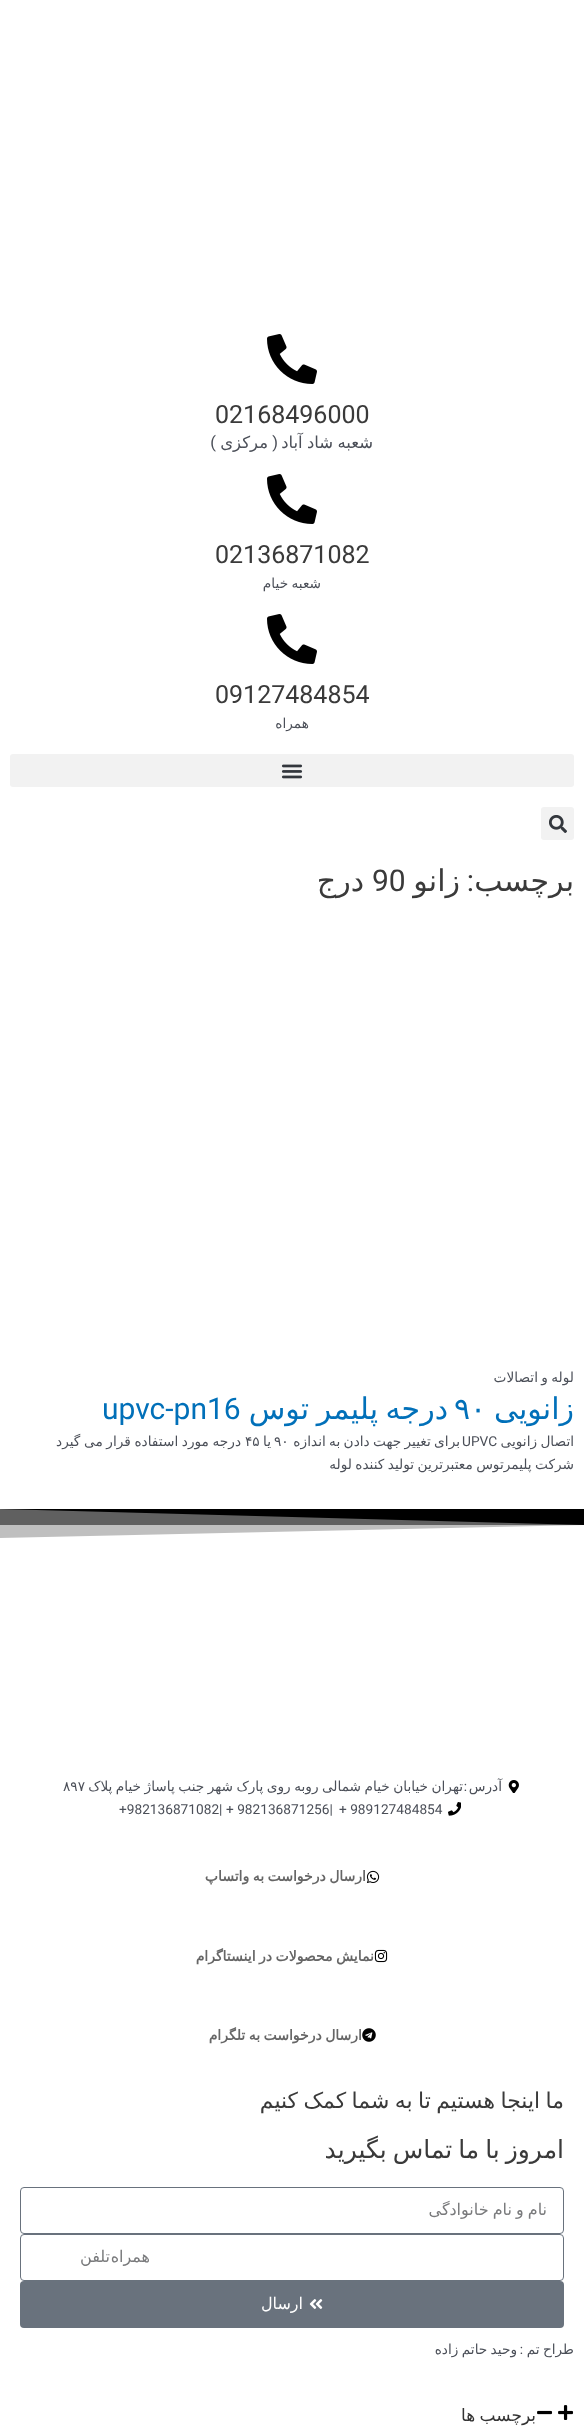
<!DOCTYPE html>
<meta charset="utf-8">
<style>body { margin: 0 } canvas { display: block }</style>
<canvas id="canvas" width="584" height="2434"></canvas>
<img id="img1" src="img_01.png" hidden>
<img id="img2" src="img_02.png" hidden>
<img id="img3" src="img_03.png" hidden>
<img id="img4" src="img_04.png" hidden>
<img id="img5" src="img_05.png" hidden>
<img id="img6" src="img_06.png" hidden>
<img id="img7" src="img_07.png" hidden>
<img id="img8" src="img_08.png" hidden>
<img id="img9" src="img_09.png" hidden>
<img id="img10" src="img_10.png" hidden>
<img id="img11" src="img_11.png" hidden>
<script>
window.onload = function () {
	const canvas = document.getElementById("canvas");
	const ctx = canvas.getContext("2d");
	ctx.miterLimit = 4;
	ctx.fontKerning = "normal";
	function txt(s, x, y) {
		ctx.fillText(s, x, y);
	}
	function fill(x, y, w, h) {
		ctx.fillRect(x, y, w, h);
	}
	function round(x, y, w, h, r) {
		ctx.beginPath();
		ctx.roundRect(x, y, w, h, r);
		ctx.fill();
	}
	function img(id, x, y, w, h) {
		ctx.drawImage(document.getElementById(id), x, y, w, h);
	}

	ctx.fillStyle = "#FFFFFF";
	fill(0, 0, 584, 2434);
	ctx.fillStyle = "#808080";
	fill(0, 1509, 583, 16);
	img("img1", 267, 334, 50, 50);
	img("img1", 267, 474, 50, 50);
	img("img1", 267, 614, 50, 50);
	ctx.fillStyle = "#F2F2F2";
	round(10, 754, 564, 33, 3);
	img("img2", 281, 764, 22, 15);
	round(541, 807, 33, 33, 3);
	img("img3", 549, 815, 18, 18);
	ctx.fillStyle = "#000000";
	ctx.beginPath();
	ctx.moveTo(0, 1509);
	ctx.lineTo(584, 1509);
	ctx.lineTo(584, 1525);
	ctx.closePath();
	ctx.fill();
	ctx.fillStyle = "rgba(0, 0, 0, 0.25)";
	ctx.beginPath();
	ctx.moveTo(584, 1509);
	ctx.lineTo(0, 1509);
	ctx.lineTo(0, 1538);
	ctx.lineTo(584, 1525);
	ctx.closePath();
	ctx.fill();
	img("img4", 508, 1780, 11, 13);
	img("img5", 448, 1802, 13, 14);
	img("img6", 366, 1870, 14, 13);
	img("img7", 374, 1949, 14, 14);
	img("img8", 362, 2028, 14, 14);
	ctx.beginPath();
	ctx.roundRect(20.5, 2187.5, 543, 46, 3.5);
	ctx.strokeStyle = "#69727D";
	ctx.stroke();
	ctx.beginPath();
	ctx.roundRect(20.5, 2234.5, 543, 46, 3.5);
	ctx.stroke();
	ctx.fillStyle = "#69727D";
	round(20, 2281, 544, 47, 4);
	img("img9", 309, 2299, 14, 10);
	img("img10", 558, 2405, 16, 15);
	img("img11", 537, 2410, 16, 5);
	ctx.font = "25px Roboto";
	ctx.fillStyle = "#3A3A3A";
	txt("02168496000", 215, 423);
	ctx.wordSpacing = "-1px";
	ctx.direction = "rtl";
	ctx.font = "16.5px DejaVu Sans";
	ctx.fillStyle = "#4B4F58";
	txt("شعبه شاد آباد", 373, 448);
	ctx.wordSpacing = "0px";
	ctx.font = "16.5px Roboto";
	txt("(", 278, 448);
	ctx.font = "16.5px DejaVu Sans";
	txt("مرکزی", 268, 448);
	ctx.font = "16.5px Roboto";
	txt(")", 216, 448);
	ctx.direction = "ltr";
	ctx.font = "25px Roboto";
	ctx.fillStyle = "#3A3A3A";
	txt("02136871082", 215, 563);
	ctx.wordSpacing = "-1px";
	ctx.direction = "rtl";
	ctx.font = "13.7px DejaVu Sans";
	ctx.fillStyle = "#4B4F58";
	txt("شعبه خیام", 321, 588);
	ctx.wordSpacing = "0px";
	ctx.direction = "ltr";
	ctx.font = "25px Roboto";
	ctx.fillStyle = "#3A3A3A";
	txt("09127484854", 215, 703);
	ctx.direction = "rtl";
	ctx.font = "13.7px DejaVu Sans";
	ctx.fillStyle = "#4B4F58";
	txt("همراه", 309, 728);
	ctx.font = "30px DejaVu Sans";
	ctx.fillStyle = "#3A3A3A";
	txt("برچسب", 574, 891);
	ctx.font = "30px Roboto";
	txt(":", 474, 891);
	ctx.font = "30px DejaVu Sans";
	txt("زانو", 460, 891);
	ctx.direction = "ltr";
	ctx.font = "30px Roboto";
	txt("90", 372, 891);
	ctx.direction = "rtl";
	ctx.font = "30px DejaVu Sans";
	txt("درج", 364, 891);
	ctx.wordSpacing = "-1px";
	ctx.font = "13.7px DejaVu Sans";
	ctx.fillStyle = "#4B4F58";
	txt("لوله و اتصالات", 574, 1382);
	ctx.wordSpacing = "0px";
	ctx.font = "30px DejaVu Sans";
	ctx.fillStyle = "#0170B9";
	txt("زانویی", 574, 1419);
	ctx.direction = "ltr";
	txt("۹۰", 454, 1419);
	ctx.wordSpacing = "-2px";
	ctx.direction = "rtl";
	txt("درجه پلیمر توس", 448, 1419);
	ctx.wordSpacing = "0px";
	ctx.direction = "ltr";
	ctx.font = "30px Roboto";
	txt("upvc-pn16", 102, 1419);
	ctx.wordSpacing = "-1px";
	ctx.direction = "rtl";
	ctx.font = "13.7px DejaVu Sans";
	ctx.fillStyle = "#4B4F58";
	txt("اتصال زانویی", 574, 1446);
	ctx.wordSpacing = "0px";
	ctx.direction = "ltr";
	ctx.font = "13.7px Roboto";
	txt("UPVC", 462, 1446);
	ctx.wordSpacing = "-1px";
	ctx.direction = "rtl";
	ctx.font = "13.7px DejaVu Sans";
	txt("برای تغییر جهت دادن به اندازه", 460, 1446);
	ctx.wordSpacing = "0px";
	ctx.direction = "ltr";
	txt("۹۰", 274, 1446);
	ctx.direction = "rtl";
	txt("یا", 271, 1446);
	ctx.direction = "ltr";
	txt("۴۵", 245, 1446);
	ctx.wordSpacing = "-0.75px";
	ctx.direction = "rtl";
	txt("درجه مورد استفاده قرار می گیرد", 241, 1446);
	ctx.wordSpacing = "-1px";
	txt("شرکت پلیمرتوس معتبرترین تولید کننده لوله", 574, 1469);
	ctx.wordSpacing = "0px";
	txt("آدرس", 502, 1791);
	ctx.font = "13.7px Roboto";
	txt(":", 467, 1791);
	ctx.wordSpacing = "-0.9px";
	ctx.font = "13.7px DejaVu Sans";
	txt("تهران خیابان خیام شمالی روبه روی پارک شهر جنب پاساژ خیام پلاک", 463, 1791);
	ctx.wordSpacing = "0px";
	ctx.direction = "ltr";
	txt("۸۹۷", 63, 1791);
	ctx.font = "13.7px Roboto";
	txt("+ 989127484854", 339, 1814);
	txt("+ 982136871256|", 226, 1814);
	txt("+982136871082|", 119, 1814);
	ctx.wordSpacing = "-1px";
	ctx.direction = "rtl";
	ctx.font = "bold 14px DejaVu Sans";
	ctx.fillStyle = "#666666";
	txt("ارسال درخواست به واتساپ", 366, 1881);
	txt("نمایش محصولات در اینستاگرام", 374, 1961);
	txt("ارسال درخواست به تلگرام", 362, 2040);
	ctx.wordSpacing = "-1.5px";
	ctx.font = "21.9px DejaVu Sans";
	ctx.fillStyle = "#3A3A3A";
	txt("ما اینجا هستیم تا به شما کمک کنیم", 564, 2108);
	ctx.wordSpacing = "-2px";
	ctx.font = "25px DejaVu Sans";
	txt("امروز با ما تماس بگیرید", 564, 2158);
	ctx.wordSpacing = "-1px";
	ctx.font = "16px DejaVu Sans";
	ctx.fillStyle = "#797A7C";
	txt("نام و نام خانوادگی", 547, 2215);
	ctx.wordSpacing = "0px";
	txt("همراه", 150, 2262);
	txt("تلفن", 110, 2262);
	ctx.fillStyle = "#FFFFFF";
	txt("ارسال", 303, 2309);
	ctx.wordSpacing = "-1px";
	ctx.font = "13.7px DejaVu Sans";
	ctx.fillStyle = "#4B4F58";
	txt("طراح تم", 574, 2354);
	ctx.wordSpacing = "0px";
	ctx.font = "13.7px Roboto";
	txt(":", 523, 2354);
	ctx.wordSpacing = "-1px";
	ctx.font = "13.7px DejaVu Sans";
	txt("وحید حاتم زاده", 517, 2354);
	ctx.font = "17px DejaVu Sans";
	ctx.fillStyle = "#333333";
	txt("برچسب ها", 536, 2421);
};
</script>
